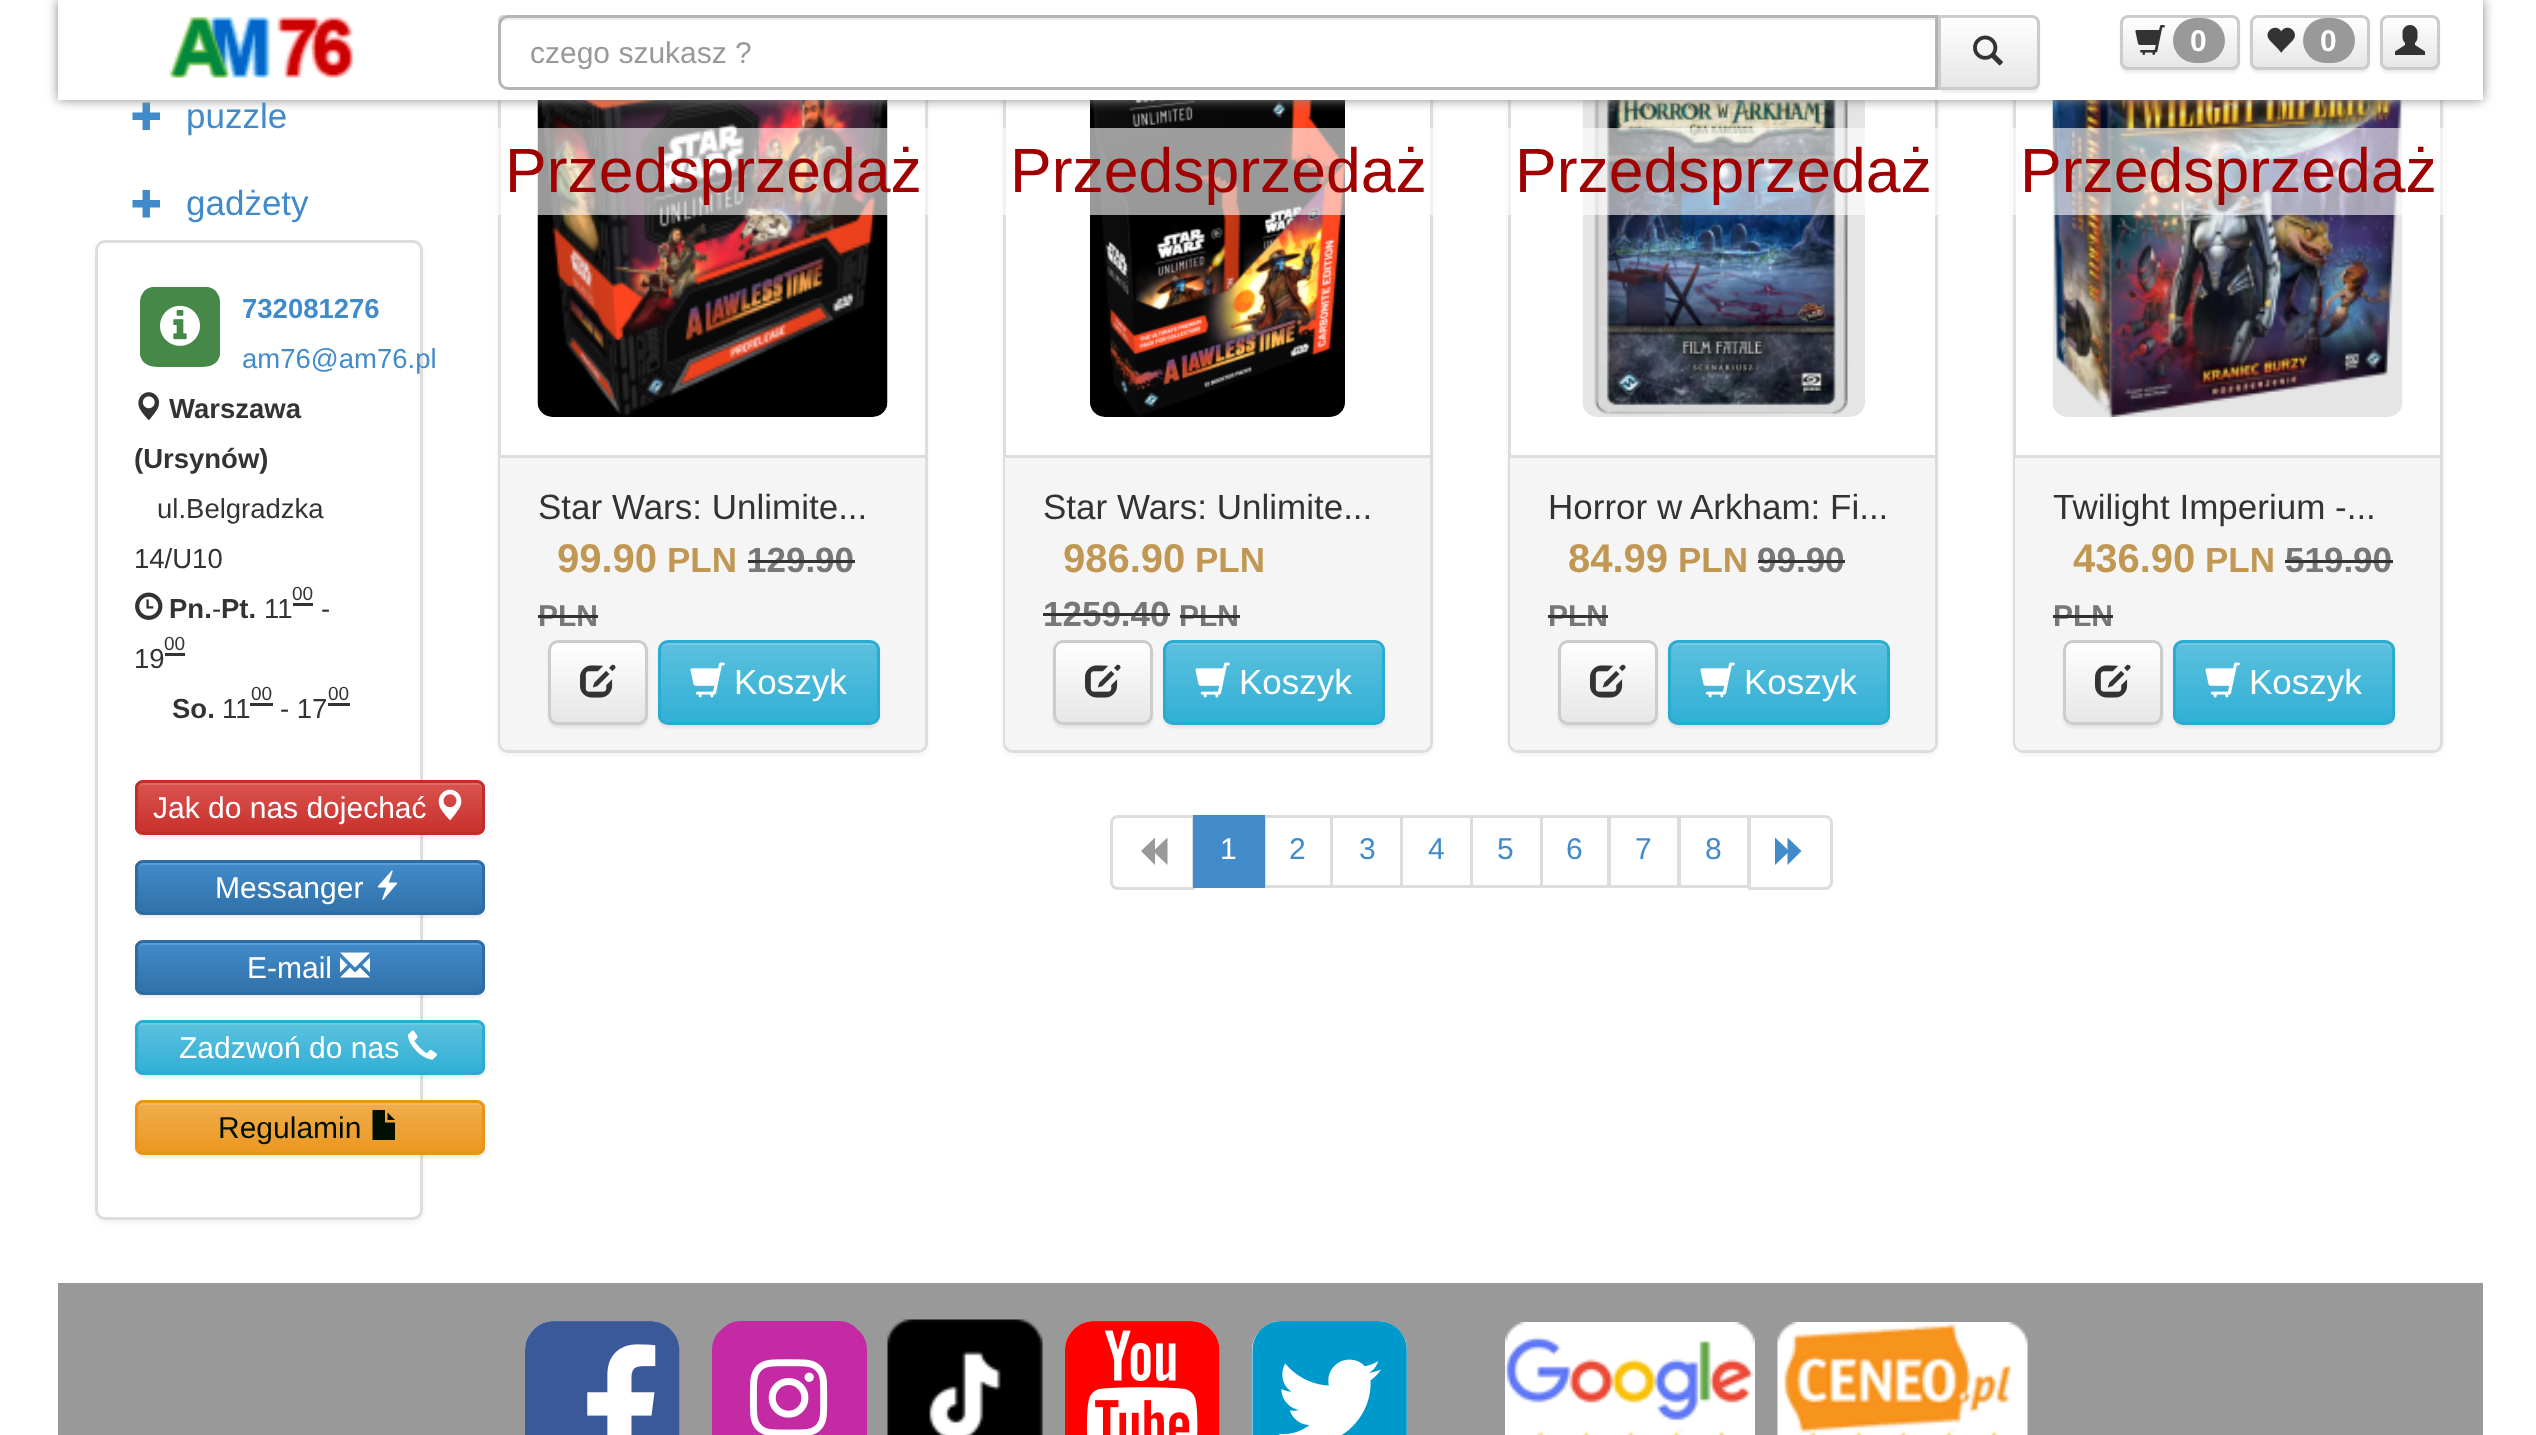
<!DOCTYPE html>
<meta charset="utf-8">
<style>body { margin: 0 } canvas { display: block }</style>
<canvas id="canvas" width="2536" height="1435"></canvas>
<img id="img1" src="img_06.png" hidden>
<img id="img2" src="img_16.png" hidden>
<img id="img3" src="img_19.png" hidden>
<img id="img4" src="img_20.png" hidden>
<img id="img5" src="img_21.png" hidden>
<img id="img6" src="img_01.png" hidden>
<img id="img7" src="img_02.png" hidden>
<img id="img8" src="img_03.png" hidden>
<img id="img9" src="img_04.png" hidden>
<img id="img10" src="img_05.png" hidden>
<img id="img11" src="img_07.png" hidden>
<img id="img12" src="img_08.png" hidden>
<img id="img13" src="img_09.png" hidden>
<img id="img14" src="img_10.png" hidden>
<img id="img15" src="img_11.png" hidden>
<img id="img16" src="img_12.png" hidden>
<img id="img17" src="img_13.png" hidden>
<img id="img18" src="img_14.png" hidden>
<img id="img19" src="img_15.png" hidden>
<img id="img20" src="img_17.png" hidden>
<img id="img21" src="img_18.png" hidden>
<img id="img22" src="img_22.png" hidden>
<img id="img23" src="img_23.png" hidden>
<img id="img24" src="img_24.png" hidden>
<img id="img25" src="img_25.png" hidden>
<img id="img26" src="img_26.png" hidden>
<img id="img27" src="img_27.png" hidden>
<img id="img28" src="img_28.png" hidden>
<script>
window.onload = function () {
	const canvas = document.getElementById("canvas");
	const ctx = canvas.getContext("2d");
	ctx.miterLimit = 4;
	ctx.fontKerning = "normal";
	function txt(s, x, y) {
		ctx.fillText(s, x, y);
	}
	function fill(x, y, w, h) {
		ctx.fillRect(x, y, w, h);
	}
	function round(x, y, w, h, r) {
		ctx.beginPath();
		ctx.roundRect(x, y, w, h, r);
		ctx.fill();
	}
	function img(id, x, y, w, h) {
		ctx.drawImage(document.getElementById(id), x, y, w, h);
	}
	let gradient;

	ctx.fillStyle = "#FFFFFF";
	fill(0, 0, 2536, 1435);
	img("img1", 132, 102, 28, 28);
	ctx.fillStyle = "rgba(0, 0, 0, 0.05)";
	ctx.filter = "blur(2.5px)";
	ctx.beginPath();
	ctx.roundRect(498, -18, 430, 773, 10);
	ctx.fill();
	ctx.filter = "none";
	ctx.fillStyle = "#FFFFFF";
	ctx.beginPath();
	ctx.roundRect(499.5, -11.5, 427, 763, 8.5);
	ctx.fill();
	ctx.strokeStyle = "#DDDDDD";
	ctx.lineWidth = 3;
	ctx.stroke();
	img("img2", 537, 100, 351, 317);
	ctx.fillStyle = "rgba(0, 0, 0, 0.05)";
	ctx.filter = "blur(2.5px)";
	ctx.beginPath();
	ctx.roundRect(1003, -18, 430, 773, 10);
	ctx.fill();
	ctx.filter = "none";
	ctx.fillStyle = "#FFFFFF";
	ctx.beginPath();
	ctx.roundRect(1004.5, -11.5, 427, 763, 8.5);
	ctx.fill();
	ctx.stroke();
	img("img3", 1090, 100, 255, 317);
	ctx.fillStyle = "rgba(0, 0, 0, 0.05)";
	ctx.filter = "blur(2.5px)";
	ctx.beginPath();
	ctx.roundRect(1508, -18, 430, 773, 10);
	ctx.fill();
	ctx.filter = "none";
	ctx.fillStyle = "#FFFFFF";
	ctx.beginPath();
	ctx.roundRect(1509.5, -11.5, 427, 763, 8.5);
	ctx.fill();
	ctx.stroke();
	img("img4", 1582, 100, 283, 317);
	ctx.fillStyle = "rgba(0, 0, 0, 0.05)";
	ctx.filter = "blur(2.5px)";
	ctx.beginPath();
	ctx.roundRect(2013, -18, 430, 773, 10);
	ctx.fill();
	ctx.filter = "none";
	ctx.fillStyle = "#FFFFFF";
	ctx.beginPath();
	ctx.roundRect(2014.5, -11.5, 427, 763, 8.5);
	ctx.fill();
	ctx.stroke();
	img("img5", 2052, 100, 351, 317);
	ctx.fillStyle = "#888888";
	ctx.filter = "blur(6px)";
	ctx.beginPath();
	ctx.rect(58, 0, 2425, 100);
	ctx.fill();
	ctx.filter = "none";
	ctx.fillStyle = "#FFFFFF";
	fill(58, 0, 2425, 100);
	img("img6", 169, 16, 184, 62);
	ctx.beginPath();
	ctx.roundRect(499.5, 16.5, 469, 62, 3.5);
	ctx.strokeStyle = "#D6D6D6";
	ctx.stroke();
	ctx.beginPath();
	ctx.roundRect(498, 15, 1440, 75, [10, 0, 0, 10]);
	ctx.fill();
	ctx.fillStyle = "#ECECEC";
	ctx.beginPath();
	ctx.moveTo(508, 20);
	ctx.lineTo(1935, 20);
	ctx.lineTo(1935, 18);
	ctx.lineTo(508, 18);
	ctx.bezierCurveTo(504, 18, 500, 22, 500, 26);
	ctx.lineTo(500, 28);
	ctx.bezierCurveTo(500, 23, 503, 20, 508, 20);
	ctx.closePath();
	ctx.fill();
	ctx.beginPath();
	ctx.roundRect(499.5, 16.5, 1437, 72, [8.5, 0, 0, 8.5]);
	ctx.strokeStyle = "#B4B4B4";
	ctx.stroke();
	ctx.fillStyle = "rgba(0, 0, 0, 0.07)";
	ctx.filter = "blur(1px)";
	ctx.beginPath();
	ctx.roundRect(1938, 18, 102, 75, 8);
	ctx.fill();
	ctx.filter = "none";
	ctx.save();
	ctx.beginPath();
	ctx.roundRect(1938, 15, 102, 75, [0, 8, 8, 0]);
	ctx.clip();
	gradient = ctx.createLinearGradient(1989, 17, 1989, 88);
	gradient.addColorStop(0, "#FFFFFF");
	gradient.addColorStop(1, "#E6E6E6");
	ctx.fillStyle = gradient;
	fill(1941, 18, 99, 70);
	ctx.restore();
	ctx.beginPath();
	ctx.roundRect(1939.5, 16.5, 99, 72, [0, 6.5, 6.5, 0]);
	ctx.strokeStyle = "#CCCCCC";
	ctx.stroke();
	img("img7", 1973, 35, 30, 31);
	ctx.filter = "blur(1px)";
	ctx.beginPath();
	ctx.roundRect(2120, 18, 120, 55, 8);
	ctx.fill();
	ctx.filter = "none";
	ctx.save();
	ctx.beginPath();
	ctx.roundRect(2120, 15, 120, 55, 8);
	ctx.clip();
	gradient = ctx.createLinearGradient(2180, 17, 2180, 68);
	gradient.addColorStop(0, "#FFFFFF");
	gradient.addColorStop(1, "#E6E6E6");
	ctx.fillStyle = gradient;
	fill(2120, 18, 120, 50);
	ctx.restore();
	ctx.beginPath();
	ctx.roundRect(2121.5, 16.5, 117, 52, 6.5);
	ctx.stroke();
	img("img8", 2135, 25, 30, 30);
	ctx.fillStyle = "#999999";
	round(2173, 18, 52, 45, 22.5);
	ctx.fillStyle = "rgba(0, 0, 0, 0.07)";
	ctx.filter = "blur(1px)";
	ctx.beginPath();
	ctx.roundRect(2250, 18, 120, 55, 8);
	ctx.fill();
	ctx.filter = "none";
	ctx.save();
	ctx.beginPath();
	ctx.roundRect(2250, 15, 120, 55, 8);
	ctx.clip();
	gradient = ctx.createLinearGradient(2310, 17, 2310, 68);
	gradient.addColorStop(0, "#FFFFFF");
	gradient.addColorStop(1, "#E6E6E6");
	ctx.fillStyle = gradient;
	fill(2250, 18, 120, 50);
	ctx.restore();
	ctx.beginPath();
	ctx.roundRect(2251.5, 16.5, 117, 52, 6.5);
	ctx.stroke();
	img("img9", 2267, 27, 28, 26);
	ctx.fillStyle = "#999999";
	round(2303, 18, 52, 45, 22.5);
	ctx.fillStyle = "rgba(0, 0, 0, 0.07)";
	ctx.filter = "blur(1px)";
	ctx.beginPath();
	ctx.roundRect(2380, 18, 60, 55, 8);
	ctx.fill();
	ctx.filter = "none";
	ctx.save();
	ctx.beginPath();
	ctx.roundRect(2380, 15, 60, 55, 8);
	ctx.clip();
	gradient = ctx.createLinearGradient(2410, 17, 2410, 68);
	gradient.addColorStop(0, "#FFFFFF");
	gradient.addColorStop(1, "#E6E6E6");
	ctx.fillStyle = gradient;
	fill(2380, 18, 60, 50);
	ctx.restore();
	ctx.beginPath();
	ctx.roundRect(2381.5, 16.5, 57, 52, 6.5);
	ctx.stroke();
	img("img10", 2395, 25, 30, 30);
	img("img11", 132, 190, 28, 28);
	ctx.fillStyle = "rgba(0, 0, 0, 0.05)";
	ctx.filter = "blur(2.5px)";
	ctx.beginPath();
	ctx.roundRect(95, 243, 328, 980, 10);
	ctx.fill();
	ctx.filter = "none";
	ctx.fillStyle = "#FFFFFF";
	ctx.beginPath();
	ctx.roundRect(96.5, 241.5, 325, 977, 8.5);
	ctx.fill();
	ctx.strokeStyle = "#DDDDDD";
	ctx.stroke();
	ctx.fillStyle = "#468847";
	ctx.beginPath();
	ctx.moveTo(220, 302);
	ctx.lineTo(220, 355);
	ctx.bezierCurveTo(217, 367, 207, 367, 197, 367);
	ctx.lineTo(163, 367);
	ctx.bezierCurveTo(153, 367, 143, 367, 140, 355);
	ctx.lineTo(140, 302);
	ctx.bezierCurveTo(140, 295, 145, 288, 152, 287);
	ctx.lineTo(208, 287);
	ctx.bezierCurveTo(215, 288, 220, 295, 220, 302);
	ctx.closePath();
	ctx.fill();
	img("img12", 160, 305, 40, 41);
	img("img13", 138, 392, 22, 29);
	img("img14", 135, 592, 28, 28);
	ctx.fillStyle = "#333333";
	fill(293, 603, 20, 3);
	fill(165, 653, 20, 3);
	fill(328, 703, 22, 3);
	fill(250, 703, 23, 3);
	ctx.fillStyle = "rgba(0, 0, 0, 0.07)";
	ctx.filter = "blur(1px)";
	ctx.beginPath();
	ctx.roundRect(135, 783, 350, 55, 8);
	ctx.fill();
	ctx.filter = "none";
	ctx.save();
	ctx.beginPath();
	ctx.roundRect(135, 780, 350, 55, 8);
	ctx.clip();
	gradient = ctx.createLinearGradient(310, 783, 310, 833);
	gradient.addColorStop(0, "#D9534F");
	gradient.addColorStop(1, "#C9302C");
	ctx.fillStyle = gradient;
	fill(135, 783, 350, 50);
	ctx.restore();
	ctx.fillStyle = "rgba(255, 255, 255, 0.15)";
	ctx.beginPath();
	ctx.moveTo(142, 785);
	ctx.lineTo(478, 785);
	ctx.bezierCurveTo(480, 785, 482, 787, 482, 790);
	ctx.lineTo(482, 831);
	ctx.bezierCurveTo(483, 830, 483, 829, 483, 828);
	ctx.lineTo(483, 788);
	ctx.bezierCurveTo(483, 785, 481, 783, 478, 783);
	ctx.lineTo(143, 783);
	ctx.bezierCurveTo(140, 783, 138, 785, 138, 788);
	ctx.lineTo(138, 790);
	ctx.bezierCurveTo(138, 787, 140, 785, 142, 785);
	ctx.closePath();
	ctx.fill();
	ctx.beginPath();
	ctx.roundRect(136.5, 781.5, 347, 52, 6.5);
	ctx.strokeStyle = "#C12E2A";
	ctx.stroke();
	img("img15", 438, 789, 24, 32);
	ctx.fillStyle = "rgba(0, 0, 0, 0.07)";
	ctx.filter = "blur(1px)";
	ctx.beginPath();
	ctx.roundRect(135, 863, 350, 55, 8);
	ctx.fill();
	ctx.filter = "none";
	ctx.save();
	ctx.beginPath();
	ctx.roundRect(135, 860, 350, 55, 8);
	ctx.clip();
	gradient = ctx.createLinearGradient(310, 863, 310, 913);
	gradient.addColorStop(0, "#428BCA");
	gradient.addColorStop(1, "#3071A9");
	ctx.fillStyle = gradient;
	fill(135, 863, 350, 50);
	ctx.restore();
	ctx.fillStyle = "rgba(255, 255, 255, 0.15)";
	ctx.beginPath();
	ctx.moveTo(142, 865);
	ctx.lineTo(478, 865);
	ctx.bezierCurveTo(480, 865, 482, 867, 482, 870);
	ctx.lineTo(482, 911);
	ctx.bezierCurveTo(483, 910, 483, 909, 483, 908);
	ctx.lineTo(483, 868);
	ctx.bezierCurveTo(483, 865, 481, 863, 478, 863);
	ctx.lineTo(143, 863);
	ctx.bezierCurveTo(140, 863, 138, 865, 138, 868);
	ctx.lineTo(138, 870);
	ctx.bezierCurveTo(138, 867, 140, 865, 142, 865);
	ctx.closePath();
	ctx.fill();
	ctx.beginPath();
	ctx.roundRect(136.5, 861.5, 347, 52, 6.5);
	ctx.strokeStyle = "#2D6CA2";
	ctx.stroke();
	img("img16", 377, 870, 21, 30);
	ctx.fillStyle = "rgba(0, 0, 0, 0.07)";
	ctx.filter = "blur(1px)";
	ctx.beginPath();
	ctx.roundRect(135, 943, 350, 55, 8);
	ctx.fill();
	ctx.filter = "none";
	ctx.save();
	ctx.beginPath();
	ctx.roundRect(135, 940, 350, 55, 8);
	ctx.clip();
	gradient = ctx.createLinearGradient(310, 943, 310, 993);
	gradient.addColorStop(0, "#428BCA");
	gradient.addColorStop(1, "#3071A9");
	ctx.fillStyle = gradient;
	fill(135, 943, 350, 50);
	ctx.restore();
	ctx.fillStyle = "rgba(255, 255, 255, 0.15)";
	ctx.beginPath();
	ctx.moveTo(142, 945);
	ctx.lineTo(478, 945);
	ctx.bezierCurveTo(480, 945, 482, 947, 482, 950);
	ctx.lineTo(482, 991);
	ctx.bezierCurveTo(483, 990, 483, 989, 483, 988);
	ctx.lineTo(483, 948);
	ctx.bezierCurveTo(483, 945, 481, 943, 478, 943);
	ctx.lineTo(143, 943);
	ctx.bezierCurveTo(140, 943, 138, 945, 138, 948);
	ctx.lineTo(138, 950);
	ctx.bezierCurveTo(138, 947, 140, 945, 142, 945);
	ctx.closePath();
	ctx.fill();
	ctx.beginPath();
	ctx.roundRect(136.5, 941.5, 347, 52, 6.5);
	ctx.stroke();
	img("img17", 340, 952, 30, 26);
	ctx.fillStyle = "rgba(0, 0, 0, 0.07)";
	ctx.filter = "blur(1px)";
	ctx.beginPath();
	ctx.roundRect(135, 1023, 350, 55, 8);
	ctx.fill();
	ctx.filter = "none";
	ctx.save();
	ctx.beginPath();
	ctx.roundRect(135, 1020, 350, 55, 8);
	ctx.clip();
	gradient = ctx.createLinearGradient(310, 1023, 310, 1073);
	gradient.addColorStop(0, "#5BC0DE");
	gradient.addColorStop(1, "#31B0D5");
	ctx.fillStyle = gradient;
	fill(135, 1023, 350, 50);
	ctx.restore();
	ctx.fillStyle = "rgba(255, 255, 255, 0.15)";
	ctx.beginPath();
	ctx.moveTo(142, 1025);
	ctx.lineTo(478, 1025);
	ctx.bezierCurveTo(480, 1025, 482, 1027, 482, 1030);
	ctx.lineTo(482, 1071);
	ctx.bezierCurveTo(483, 1070, 483, 1069, 483, 1068);
	ctx.lineTo(483, 1028);
	ctx.bezierCurveTo(483, 1025, 481, 1023, 478, 1023);
	ctx.lineTo(143, 1023);
	ctx.bezierCurveTo(140, 1023, 138, 1025, 138, 1028);
	ctx.lineTo(138, 1030);
	ctx.bezierCurveTo(138, 1027, 140, 1025, 142, 1025);
	ctx.closePath();
	ctx.fill();
	ctx.beginPath();
	ctx.roundRect(136.5, 1021.5, 347, 52, 6.5);
	ctx.strokeStyle = "#2AABD2";
	ctx.stroke();
	img("img18", 407, 1030, 30, 30);
	ctx.fillStyle = "rgba(0, 0, 0, 0.07)";
	ctx.filter = "blur(1px)";
	ctx.beginPath();
	ctx.roundRect(135, 1103, 350, 55, 8);
	ctx.fill();
	ctx.filter = "none";
	ctx.save();
	ctx.beginPath();
	ctx.roundRect(135, 1100, 350, 55, 8);
	ctx.clip();
	gradient = ctx.createLinearGradient(310, 1103, 310, 1153);
	gradient.addColorStop(0, "#F0AD4E");
	gradient.addColorStop(1, "#EC971F");
	ctx.fillStyle = gradient;
	fill(135, 1103, 350, 50);
	ctx.restore();
	ctx.fillStyle = "rgba(255, 255, 255, 0.15)";
	ctx.beginPath();
	ctx.moveTo(142, 1105);
	ctx.lineTo(478, 1105);
	ctx.bezierCurveTo(480, 1105, 482, 1107, 482, 1110);
	ctx.lineTo(482, 1151);
	ctx.bezierCurveTo(483, 1150, 483, 1149, 483, 1148);
	ctx.lineTo(483, 1108);
	ctx.bezierCurveTo(483, 1105, 481, 1103, 478, 1103);
	ctx.lineTo(143, 1103);
	ctx.bezierCurveTo(140, 1103, 138, 1105, 138, 1108);
	ctx.lineTo(138, 1110);
	ctx.bezierCurveTo(138, 1107, 140, 1105, 142, 1105);
	ctx.closePath();
	ctx.fill();
	ctx.beginPath();
	ctx.roundRect(136.5, 1101.5, 347, 52, 6.5);
	ctx.strokeStyle = "#EB9316";
	ctx.stroke();
	img("img19", 372, 1110, 23, 30);
	ctx.fillStyle = "#F5F5F5";
	ctx.beginPath();
	ctx.roundRect(500, 455, 425, 295, [0, 0, 8, 8]);
	ctx.fill();
	ctx.fillStyle = "#DDDDDD";
	fill(500, 455, 425, 3);
	ctx.fillStyle = "rgba(255, 255, 255, 0.6)";
	fill(497, 128, 432, 87);
	ctx.fillStyle = "rgba(0, 0, 0, 0.07)";
	ctx.filter = "blur(1px)";
	ctx.beginPath();
	ctx.roundRect(548, 643, 100, 85, 10);
	ctx.fill();
	ctx.filter = "none";
	ctx.save();
	ctx.beginPath();
	ctx.roundRect(548, 640, 100, 85, 10);
	ctx.clip();
	gradient = ctx.createLinearGradient(598, 643, 598, 723);
	gradient.addColorStop(0, "#FFFFFF");
	gradient.addColorStop(1, "#E6E6E6");
	ctx.fillStyle = gradient;
	fill(548, 643, 100, 80);
	ctx.restore();
	ctx.beginPath();
	ctx.roundRect(549.5, 641.5, 97, 82, 8.5);
	ctx.strokeStyle = "#CCCCCC";
	ctx.stroke();
	img("img20", 580, 664, 36, 34);
	ctx.filter = "blur(1px)";
	ctx.beginPath();
	ctx.roundRect(658, 643, 222, 85, 10);
	ctx.fill();
	ctx.filter = "none";
	ctx.save();
	ctx.beginPath();
	ctx.roundRect(658, 640, 222, 85, 10);
	ctx.clip();
	gradient = ctx.createLinearGradient(769, 643, 769, 723);
	gradient.addColorStop(0, "#5BC0DE");
	gradient.addColorStop(1, "#31B0D5");
	ctx.fillStyle = gradient;
	fill(658, 643, 222, 80);
	ctx.restore();
	ctx.fillStyle = "#73C9E3";
	ctx.beginPath();
	ctx.moveTo(668, 645);
	ctx.lineTo(870, 645);
	ctx.bezierCurveTo(874, 645, 878, 648, 878, 652);
	ctx.lineTo(878, 651);
	ctx.bezierCurveTo(878, 647, 874, 643, 870, 643);
	ctx.lineTo(668, 643);
	ctx.bezierCurveTo(664, 643, 660, 647, 660, 651);
	ctx.lineTo(660, 652);
	ctx.bezierCurveTo(660, 648, 663, 645, 668, 645);
	ctx.closePath();
	ctx.fill();
	ctx.beginPath();
	ctx.roundRect(659.5, 641.5, 219, 82, 8.5);
	ctx.strokeStyle = "#2AABD2";
	ctx.stroke();
	img("img21", 690, 662, 35, 36);
	ctx.fillStyle = "#F5F5F5";
	ctx.beginPath();
	ctx.roundRect(1005, 455, 425, 295, [0, 0, 8, 8]);
	ctx.fill();
	ctx.fillStyle = "#DDDDDD";
	fill(1005, 455, 425, 3);
	ctx.fillStyle = "rgba(255, 255, 255, 0.6)";
	fill(1002, 128, 432, 87);
	ctx.fillStyle = "rgba(0, 0, 0, 0.07)";
	ctx.filter = "blur(1px)";
	ctx.beginPath();
	ctx.roundRect(1053, 643, 100, 85, 10);
	ctx.fill();
	ctx.filter = "none";
	ctx.save();
	ctx.beginPath();
	ctx.roundRect(1053, 640, 100, 85, 10);
	ctx.clip();
	gradient = ctx.createLinearGradient(1103, 643, 1103, 723);
	gradient.addColorStop(0, "#FFFFFF");
	gradient.addColorStop(1, "#E6E6E6");
	ctx.fillStyle = gradient;
	fill(1053, 643, 100, 80);
	ctx.restore();
	ctx.beginPath();
	ctx.roundRect(1054.5, 641.5, 97, 82, 8.5);
	ctx.strokeStyle = "#CCCCCC";
	ctx.stroke();
	img("img20", 1085, 664, 36, 34);
	ctx.filter = "blur(1px)";
	ctx.beginPath();
	ctx.roundRect(1163, 643, 222, 85, 10);
	ctx.fill();
	ctx.filter = "none";
	ctx.save();
	ctx.beginPath();
	ctx.roundRect(1163, 640, 222, 85, 10);
	ctx.clip();
	gradient = ctx.createLinearGradient(1274, 643, 1274, 723);
	gradient.addColorStop(0, "#5BC0DE");
	gradient.addColorStop(1, "#31B0D5");
	ctx.fillStyle = gradient;
	fill(1163, 643, 222, 80);
	ctx.restore();
	ctx.fillStyle = "rgba(255, 255, 255, 0.15)";
	ctx.beginPath();
	ctx.moveTo(1172, 645);
	ctx.lineTo(1375, 645);
	ctx.bezierCurveTo(1384, 645, 1382, 658, 1382, 663);
	ctx.lineTo(1382, 719);
	ctx.bezierCurveTo(1383, 718, 1383, 716, 1383, 715);
	ctx.lineTo(1383, 651);
	ctx.bezierCurveTo(1383, 647, 1379, 643, 1375, 643);
	ctx.lineTo(1173, 643);
	ctx.bezierCurveTo(1169, 643, 1165, 647, 1165, 651);
	ctx.lineTo(1165, 652);
	ctx.bezierCurveTo(1165, 648, 1168, 645, 1172, 645);
	ctx.closePath();
	ctx.fill();
	ctx.beginPath();
	ctx.roundRect(1164.5, 641.5, 219, 82, 8.5);
	ctx.strokeStyle = "#2AABD2";
	ctx.stroke();
	img("img21", 1195, 662, 35, 36);
	ctx.fillStyle = "#F5F5F5";
	ctx.beginPath();
	ctx.roundRect(1510, 455, 425, 295, [0, 0, 8, 8]);
	ctx.fill();
	ctx.fillStyle = "#DDDDDD";
	fill(1510, 455, 425, 3);
	ctx.fillStyle = "rgba(255, 255, 255, 0.6)";
	fill(1507, 128, 432, 87);
	ctx.fillStyle = "rgba(0, 0, 0, 0.07)";
	ctx.filter = "blur(1px)";
	ctx.beginPath();
	ctx.roundRect(1558, 643, 100, 85, 10);
	ctx.fill();
	ctx.filter = "none";
	ctx.save();
	ctx.beginPath();
	ctx.roundRect(1558, 640, 100, 85, 10);
	ctx.clip();
	gradient = ctx.createLinearGradient(1608, 643, 1608, 723);
	gradient.addColorStop(0, "#FFFFFF");
	gradient.addColorStop(1, "#E6E6E6");
	ctx.fillStyle = gradient;
	fill(1558, 643, 100, 80);
	ctx.restore();
	ctx.beginPath();
	ctx.roundRect(1559.5, 641.5, 97, 82, 8.5);
	ctx.strokeStyle = "#CCCCCC";
	ctx.stroke();
	img("img20", 1590, 664, 36, 34);
	ctx.filter = "blur(1px)";
	ctx.beginPath();
	ctx.roundRect(1668, 643, 222, 85, 10);
	ctx.fill();
	ctx.filter = "none";
	ctx.save();
	ctx.beginPath();
	ctx.roundRect(1668, 640, 222, 85, 10);
	ctx.clip();
	gradient = ctx.createLinearGradient(1779, 643, 1779, 723);
	gradient.addColorStop(0, "#5BC0DE");
	gradient.addColorStop(1, "#31B0D5");
	ctx.fillStyle = gradient;
	fill(1668, 643, 222, 80);
	ctx.restore();
	ctx.fillStyle = "#73C9E3";
	ctx.beginPath();
	ctx.moveTo(1678, 645);
	ctx.lineTo(1880, 645);
	ctx.bezierCurveTo(1884, 645, 1888, 648, 1888, 652);
	ctx.lineTo(1888, 651);
	ctx.bezierCurveTo(1888, 647, 1884, 643, 1880, 643);
	ctx.lineTo(1678, 643);
	ctx.bezierCurveTo(1674, 643, 1670, 647, 1670, 651);
	ctx.lineTo(1670, 652);
	ctx.bezierCurveTo(1670, 648, 1673, 645, 1678, 645);
	ctx.closePath();
	ctx.fill();
	ctx.beginPath();
	ctx.roundRect(1669.5, 641.5, 219, 82, 8.5);
	ctx.strokeStyle = "#2AABD2";
	ctx.stroke();
	img("img21", 1700, 662, 35, 36);
	ctx.fillStyle = "#F5F5F5";
	ctx.beginPath();
	ctx.roundRect(2015, 455, 425, 295, [0, 0, 8, 8]);
	ctx.fill();
	ctx.fillStyle = "#DDDDDD";
	fill(2015, 455, 425, 3);
	ctx.fillStyle = "rgba(255, 255, 255, 0.6)";
	fill(2012, 128, 432, 87);
	ctx.fillStyle = "rgba(0, 0, 0, 0.07)";
	ctx.filter = "blur(1px)";
	ctx.beginPath();
	ctx.roundRect(2063, 643, 100, 85, 10);
	ctx.fill();
	ctx.filter = "none";
	ctx.save();
	ctx.beginPath();
	ctx.roundRect(2063, 640, 100, 85, 10);
	ctx.clip();
	gradient = ctx.createLinearGradient(2113, 643, 2113, 723);
	gradient.addColorStop(0, "#FFFFFF");
	gradient.addColorStop(1, "#E6E6E6");
	ctx.fillStyle = gradient;
	fill(2063, 643, 100, 80);
	ctx.restore();
	ctx.beginPath();
	ctx.roundRect(2064.5, 641.5, 97, 82, 8.5);
	ctx.strokeStyle = "#CCCCCC";
	ctx.stroke();
	img("img20", 2095, 664, 36, 34);
	ctx.filter = "blur(1px)";
	ctx.beginPath();
	ctx.roundRect(2173, 643, 222, 85, 10);
	ctx.fill();
	ctx.filter = "none";
	ctx.save();
	ctx.beginPath();
	ctx.roundRect(2173, 640, 222, 85, 10);
	ctx.clip();
	gradient = ctx.createLinearGradient(2284, 643, 2284, 723);
	gradient.addColorStop(0, "#5BC0DE");
	gradient.addColorStop(1, "#31B0D5");
	ctx.fillStyle = gradient;
	fill(2173, 643, 222, 80);
	ctx.restore();
	ctx.fillStyle = "rgba(255, 255, 255, 0.15)";
	ctx.beginPath();
	ctx.moveTo(2182, 645);
	ctx.lineTo(2385, 645);
	ctx.bezierCurveTo(2394, 645, 2392, 658, 2392, 663);
	ctx.lineTo(2392, 719);
	ctx.bezierCurveTo(2393, 718, 2393, 716, 2393, 715);
	ctx.lineTo(2393, 651);
	ctx.bezierCurveTo(2393, 647, 2389, 643, 2385, 643);
	ctx.lineTo(2183, 643);
	ctx.bezierCurveTo(2179, 643, 2175, 647, 2175, 651);
	ctx.lineTo(2175, 652);
	ctx.bezierCurveTo(2175, 648, 2178, 645, 2182, 645);
	ctx.closePath();
	ctx.fill();
	ctx.beginPath();
	ctx.roundRect(2174.5, 641.5, 219, 82, 8.5);
	ctx.strokeStyle = "#2AABD2";
	ctx.stroke();
	img("img21", 2205, 662, 35, 36);
	ctx.beginPath();
	ctx.roundRect(1111.5, 816.5, 82, 72, [6.5, 0, 0, 6.5]);
	ctx.strokeStyle = "#DDDDDD";
	ctx.stroke();
	ctx.fillStyle = "#999999";
	ctx.beginPath();
	ctx.moveTo(1167.5, 865);
	ctx.lineTo(1155, 853);
	ctx.lineTo(1155, 865);
	ctx.lineTo(1141, 851);
	ctx.lineTo(1155, 837.5);
	ctx.lineTo(1155, 849.5);
	ctx.lineTo(1167.5, 837.5);
	ctx.closePath();
	ctx.fill();
	ctx.strokeRect(1264.5, 816.5, 67, 70);
	ctx.fillStyle = "#428BCA";
	fill(1193, 815, 72, 73);
	ctx.strokeRect(1331.5, 816.5, 70, 70);
	ctx.strokeRect(1401.5, 816.5, 70, 70);
	ctx.strokeRect(1471.5, 816.5, 70, 70);
	ctx.strokeRect(1541.5, 816.5, 67, 70);
	ctx.strokeRect(1609.5, 816.5, 69, 70);
	ctx.strokeRect(1679.5, 816.5, 69, 70);
	ctx.fillStyle = "#FFFFFF";
	ctx.beginPath();
	ctx.roundRect(1749.5, 816.5, 82, 72, [0, 6.5, 6.5, 0]);
	ctx.fill();
	ctx.stroke();
	ctx.fillStyle = "#428BCA";
	ctx.beginPath();
	ctx.moveTo(1787.5, 865);
	ctx.lineTo(1787.5, 853);
	ctx.lineTo(1775, 865);
	ctx.lineTo(1775, 837.5);
	ctx.lineTo(1787.5, 849.5);
	ctx.lineTo(1787.5, 837.5);
	ctx.lineTo(1801.5, 851);
	ctx.closePath();
	ctx.fill();
	ctx.fillStyle = "#999999";
	fill(58, 1283, 2425, 152);
	ctx.fillStyle = "#FFFFFF";
	ctx.beginPath();
	ctx.moveTo(679, 1350);
	ctx.lineTo(679, 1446);
	ctx.bezierCurveTo(679, 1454, 676, 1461, 671, 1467);
	ctx.bezierCurveTo(665, 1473, 658, 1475, 650, 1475);
	ctx.lineTo(554, 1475);
	ctx.bezierCurveTo(546, 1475, 539, 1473, 533, 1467);
	ctx.bezierCurveTo(528, 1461, 525, 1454, 525, 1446);
	ctx.lineTo(525, 1350);
	ctx.bezierCurveTo(525, 1342, 528, 1335, 533, 1330);
	ctx.bezierCurveTo(539, 1324, 546, 1321, 554, 1321);
	ctx.lineTo(650, 1321);
	ctx.bezierCurveTo(658, 1321, 665, 1324, 671, 1330);
	ctx.bezierCurveTo(676, 1335, 679, 1342, 679, 1350);
	ctx.closePath();
	ctx.fill();
	img("img22", 525, 1321, 155, 114);
	ctx.fillStyle = "#C32AA3";
	ctx.beginPath();
	ctx.moveTo(867, 1350);
	ctx.lineTo(867, 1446);
	ctx.bezierCurveTo(867, 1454, 864, 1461, 858, 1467);
	ctx.bezierCurveTo(853, 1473, 846, 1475, 838, 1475);
	ctx.lineTo(741, 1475);
	ctx.bezierCurveTo(733, 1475, 727, 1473, 721, 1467);
	ctx.bezierCurveTo(715, 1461, 712, 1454, 712, 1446);
	ctx.lineTo(712, 1350);
	ctx.bezierCurveTo(712, 1342, 715, 1335, 721, 1330);
	ctx.bezierCurveTo(727, 1324, 733, 1321, 741, 1321);
	ctx.lineTo(838, 1321);
	ctx.bezierCurveTo(846, 1321, 853, 1324, 858, 1330);
	ctx.bezierCurveTo(864, 1335, 867, 1342, 867, 1350);
	ctx.closePath();
	ctx.fill();
	img("img23", 750, 1359, 78, 76);
	img("img24", 887, 1319, 156, 116);
	ctx.fillStyle = "#FFFFFF";
	ctx.beginPath();
	ctx.moveTo(1219, 1350);
	ctx.lineTo(1219, 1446);
	ctx.bezierCurveTo(1219, 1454, 1216, 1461, 1211, 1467);
	ctx.bezierCurveTo(1205, 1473, 1198, 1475, 1190, 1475);
	ctx.lineTo(1094, 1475);
	ctx.bezierCurveTo(1086, 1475, 1079, 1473, 1073, 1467);
	ctx.bezierCurveTo(1068, 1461, 1065, 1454, 1065, 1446);
	ctx.lineTo(1065, 1350);
	ctx.bezierCurveTo(1065, 1342, 1068, 1335, 1073, 1330);
	ctx.bezierCurveTo(1079, 1324, 1086, 1321, 1094, 1321);
	ctx.lineTo(1190, 1321);
	ctx.bezierCurveTo(1198, 1321, 1205, 1324, 1211, 1330);
	ctx.bezierCurveTo(1216, 1335, 1219, 1342, 1219, 1350);
	ctx.closePath();
	ctx.fill();
	img("img25", 1065, 1321, 155, 114);
	ctx.beginPath();
	ctx.moveTo(1407, 1350);
	ctx.lineTo(1407, 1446);
	ctx.bezierCurveTo(1407, 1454, 1404, 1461, 1398, 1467);
	ctx.bezierCurveTo(1393, 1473, 1386, 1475, 1378, 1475);
	ctx.lineTo(1281, 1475);
	ctx.bezierCurveTo(1273, 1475, 1267, 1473, 1261, 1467);
	ctx.bezierCurveTo(1255, 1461, 1252, 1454, 1252, 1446);
	ctx.lineTo(1252, 1350);
	ctx.bezierCurveTo(1252, 1342, 1255, 1335, 1261, 1330);
	ctx.bezierCurveTo(1267, 1324, 1273, 1321, 1281, 1321);
	ctx.lineTo(1378, 1321);
	ctx.bezierCurveTo(1386, 1321, 1393, 1324, 1398, 1330);
	ctx.bezierCurveTo(1404, 1335, 1407, 1342, 1407, 1350);
	ctx.closePath();
	ctx.fill();
	img("img26", 1252, 1321, 155, 114);
	img("img27", 1505, 1322, 250, 113);
	img("img28", 1777, 1322, 251, 113);
	ctx.font = "30px Liberation Sans";
	ctx.fillStyle = "#999999";
	txt("czego szukasz ?", 530, 63);
	ctx.font = "bold 30px Liberation Sans";
	ctx.fillStyle = "#FFFFFF";
	txt("0", 2190, 51);
	txt("0", 2320, 51);
	ctx.font = "35px Liberation Sans";
	ctx.fillStyle = "#428BCA";
	txt("puzzle", 186, 128);
	txt("gadżety", 186, 215);
	ctx.font = "bold 27.5px Liberation Sans";
	txt("732081276", 242, 318);
	ctx.font = "27.5px Liberation Sans";
	txt("am76@am76.pl", 242, 368);
	ctx.font = "bold 27.5px Liberation Sans";
	ctx.fillStyle = "#333333";
	txt("Warszawa", 169, 418);
	txt("(Ursynów)", 134, 468);
	ctx.font = "27.5px Liberation Sans";
	txt("ul.Belgradzka", 157, 518);
	txt("14/U10", 134, 568);
	ctx.font = "bold 27.5px Liberation Sans";
	txt("Pn.", 169, 618);
	ctx.font = "27.5px Liberation Sans";
	txt("-", 212, 618);
	ctx.font = "bold 27.5px Liberation Sans";
	txt("Pt.", 221, 618);
	ctx.font = "27.5px Liberation Sans";
	txt("11", 264, 618);
	ctx.font = "19px Liberation Sans";
	txt("00", 292, 600);
	ctx.font = "27.5px Liberation Sans";
	txt("-", 321, 618);
	ctx.font = "19px Liberation Sans";
	txt("00", 164, 650);
	ctx.font = "27.5px Liberation Sans";
	txt("19", 134, 668);
	ctx.font = "19px Liberation Sans";
	txt("00", 251, 700);
	txt("00", 328, 700);
	ctx.font = "bold 27.5px Liberation Sans";
	txt("So.", 172, 718);
	ctx.font = "27.5px Liberation Sans";
	txt("11", 222, 718);
	txt("- 17", 280, 718);
	ctx.font = "30px Liberation Sans";
	ctx.fillStyle = "#FFFFFF";
	txt("Jak do nas dojechać", 153, 818);
	txt("Messanger", 215, 898);
	txt("E-mail", 247, 978);
	txt("Zadzwoń do nas", 179, 1058);
	ctx.fillStyle = "#000F00";
	txt("Regulamin", 218, 1138);
	ctx.font = "62.5px Liberation Sans";
	ctx.fillStyle = "#A00000";
	txt("Przedsprzedaż", 505, 192);
	ctx.font = "35px Liberation Sans";
	ctx.fillStyle = "#FFFFFF";
	txt("Koszyk", 734, 694);
	ctx.fillStyle = "#333333";
	txt("Star Wars: Unlimite...", 538, 519);
	ctx.font = "bold 40px Liberation Sans";
	ctx.fillStyle = "#C09853";
	txt("99.90", 557, 572);
	ctx.font = "bold 35px Liberation Sans";
	txt("PLN", 667, 572);
	ctx.fillStyle = "#777777";
	txt("129.90", 747, 572);
	ctx.fillStyle = "#333333";
	fill(748, 560, 107, 3);
	ctx.font = "bold 30px Liberation Sans";
	ctx.fillStyle = "#777777";
	txt("PLN", 538, 626);
	ctx.fillStyle = "#333333";
	fill(538, 615, 60, 3);
	ctx.font = "62.5px Liberation Sans";
	ctx.fillStyle = "#A00000";
	txt("Przedsprzedaż", 1010, 192);
	ctx.font = "35px Liberation Sans";
	ctx.fillStyle = "#FFFFFF";
	txt("Koszyk", 1239, 694);
	ctx.fillStyle = "#333333";
	txt("Star Wars: Unlimite...", 1043, 519);
	ctx.font = "bold 40px Liberation Sans";
	ctx.fillStyle = "#C09853";
	txt("986.90", 1063, 572);
	ctx.font = "bold 35px Liberation Sans";
	txt("PLN", 1195, 572);
	ctx.fillStyle = "#777777";
	txt("1259.40", 1043, 626);
	ctx.fillStyle = "#333333";
	fill(1043, 613, 127, 3);
	ctx.font = "bold 30px Liberation Sans";
	ctx.fillStyle = "#777777";
	txt("PLN", 1179, 626);
	ctx.fillStyle = "#333333";
	fill(1180, 615, 60, 3);
	ctx.font = "62.5px Liberation Sans";
	ctx.fillStyle = "#A00000";
	txt("Przedsprzedaż", 1515, 192);
	ctx.font = "35px Liberation Sans";
	ctx.fillStyle = "#FFFFFF";
	txt("Koszyk", 1744, 694);
	ctx.fillStyle = "#333333";
	txt("Horror w Arkham: Fi...", 1548, 519);
	ctx.font = "bold 40px Liberation Sans";
	ctx.fillStyle = "#C09853";
	txt("84.99", 1568, 572);
	ctx.font = "bold 35px Liberation Sans";
	txt("PLN", 1678, 572);
	ctx.fillStyle = "#777777";
	txt("99.90", 1757, 572);
	ctx.fillStyle = "#333333";
	fill(1758, 560, 87, 3);
	ctx.font = "bold 30px Liberation Sans";
	ctx.fillStyle = "#777777";
	txt("PLN", 1548, 626);
	ctx.fillStyle = "#333333";
	fill(1548, 615, 60, 3);
	ctx.font = "62.5px Liberation Sans";
	ctx.fillStyle = "#A00000";
	txt("Przedsprzedaż", 2020, 192);
	ctx.font = "35px Liberation Sans";
	ctx.fillStyle = "#FFFFFF";
	txt("Koszyk", 2249, 694);
	ctx.fillStyle = "#333333";
	txt("Twilight Imperium -...", 2053, 519);
	ctx.font = "bold 40px Liberation Sans";
	ctx.fillStyle = "#C09853";
	txt("436.90", 2073, 572);
	ctx.font = "bold 35px Liberation Sans";
	txt("PLN", 2205, 572);
	ctx.fillStyle = "#777777";
	txt("519.90", 2285, 572);
	ctx.fillStyle = "#333333";
	fill(2285, 560, 108, 3);
	ctx.font = "bold 30px Liberation Sans";
	ctx.fillStyle = "#777777";
	txt("PLN", 2053, 626);
	ctx.fillStyle = "#333333";
	fill(2053, 615, 60, 3);
	ctx.font = "30px Liberation Sans";
	ctx.fillStyle = "#FFFFFF";
	txt("1", 1220, 859);
	ctx.fillStyle = "#428BCA";
	txt("2", 1289, 859);
	txt("3", 1359, 859);
	txt("4", 1428, 859);
	txt("5", 1497, 859);
	txt("6", 1566, 859);
	txt("7", 1635, 859);
	txt("8", 1705, 859);
};
</script>
